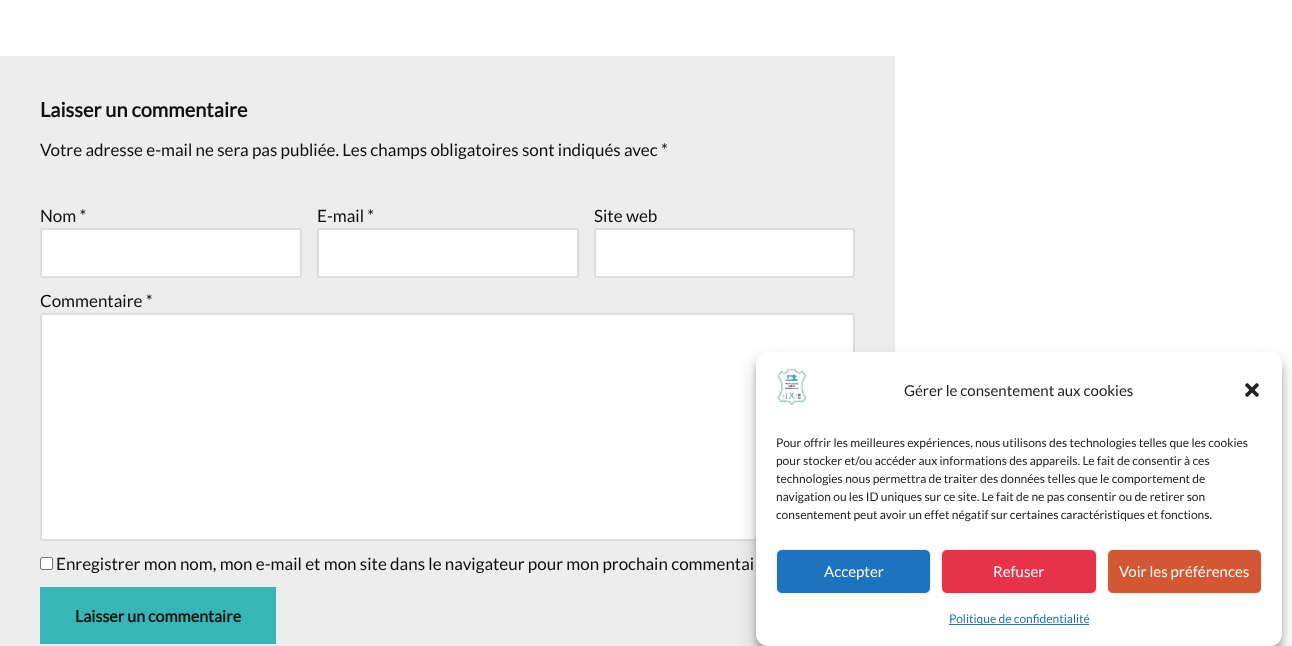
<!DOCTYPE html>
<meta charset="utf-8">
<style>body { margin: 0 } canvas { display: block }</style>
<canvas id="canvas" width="1292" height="646"></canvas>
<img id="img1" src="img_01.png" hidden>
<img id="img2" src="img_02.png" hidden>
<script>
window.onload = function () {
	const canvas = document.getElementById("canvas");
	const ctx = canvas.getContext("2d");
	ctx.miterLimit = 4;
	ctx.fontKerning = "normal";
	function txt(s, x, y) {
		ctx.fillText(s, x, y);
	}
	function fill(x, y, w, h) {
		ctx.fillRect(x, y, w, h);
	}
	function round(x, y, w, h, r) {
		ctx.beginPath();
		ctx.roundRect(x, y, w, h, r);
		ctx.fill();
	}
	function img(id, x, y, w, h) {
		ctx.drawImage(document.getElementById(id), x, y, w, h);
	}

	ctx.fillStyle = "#FFFFFF";
	fill(0, 0, 1292, 646);
	ctx.fillStyle = "#EDEDED";
	fill(0, 56, 895, 590);
	ctx.fillStyle = "#FFFFFF";
	ctx.beginPath();
	ctx.roundRect(41, 229, 260, 48, 2);
	ctx.fill();
	ctx.strokeStyle = "#DDDDDD";
	ctx.lineWidth = 2;
	ctx.stroke();
	ctx.beginPath();
	ctx.roundRect(318, 229, 260, 48, 2);
	ctx.fill();
	ctx.stroke();
	ctx.beginPath();
	ctx.roundRect(595, 229, 259, 48, 2);
	ctx.fill();
	ctx.stroke();
	ctx.beginPath();
	ctx.roundRect(41, 314, 813, 226, 2);
	ctx.fill();
	ctx.stroke();
	ctx.beginPath();
	ctx.roundRect(40.5, 557.5, 12, 12, 1.5);
	ctx.fill();
	ctx.strokeStyle = "#767676";
	ctx.lineWidth = 1;
	ctx.stroke();
	ctx.fillStyle = "#36B7B5";
	fill(40, 587, 236, 57);
	ctx.fillStyle = "rgba(0, 0, 0, 0.23)";
	ctx.filter = "blur(3px)";
	ctx.beginPath();
	ctx.roundRect(756, 358, 526, 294, 12);
	ctx.fill();
	ctx.filter = "none";
	ctx.fillStyle = "rgba(0, 0, 0, 0.19)";
	ctx.filter = "blur(10px)";
	ctx.beginPath();
	ctx.roundRect(756, 362, 526, 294, 12);
	ctx.fill();
	ctx.filter = "none";
	ctx.fillStyle = "#FFFFFF";
	round(756, 352, 526, 294, 12);
	img("img1", 777, 368, 30, 38);
	img("img2", 1245, 383, 14, 14);
	ctx.fillStyle = "#1E73BE";
	ctx.beginPath();
	ctx.roundRect(776.5, 549.5, 154, 44, 5.5);
	ctx.fill();
	ctx.strokeStyle = "#F2F2F2";
	ctx.stroke();
	ctx.fillStyle = "#E7334A";
	ctx.beginPath();
	ctx.roundRect(941.5, 549.5, 155, 44, 5.5);
	ctx.fill();
	ctx.stroke();
	ctx.fillStyle = "#D15832";
	ctx.beginPath();
	ctx.roundRect(1107.5, 549.5, 154, 44, 5.5);
	ctx.fill();
	ctx.stroke();
	ctx.fillStyle = "#1E73BE";
	fill(949, 624, 140, 1);
	ctx.font = "bold 20px Lato";
	ctx.fillStyle = "#101010";
	txt("Laisser un commentaire", 40, 117);
	ctx.font = "17px Lato";
	txt("Votre adresse e-mail ne sera pas publiée. Les champs obligatoires sont indiqués avec *", 40, 156);
	txt("Nom *", 40, 222);
	txt("E-mail *", 317, 222);
	txt("Site web", 594, 222);
	txt("Commentaire *", 40, 307);
	txt("Enregistrer mon nom, mon e-mail et mon site dans le navigateur pour mon prochain commentai", 56, 570);
	ctx.font = "bold 16px Lato";
	txt("Laisser un commentaire", 75, 622);
	ctx.font = "15px Lato";
	ctx.fillStyle = "#222222";
	txt("Gérer le consentement aux cookies", 904, 396);
	ctx.font = "12px Lato";
	txt("Pour offrir les meilleures expériences, nous utilisons des technologies telles que les cookies", 776, 447);
	txt("pour stocker et/ou accéder aux informations des appareils. Le fait de consentir à ces", 776, 465);
	txt("technologies nous permettra de traiter des données telles que le comportement de", 776, 483);
	txt("navigation ou les ID uniques sur ce site. Le fait de ne pas consentir ou de retirer son", 776, 501);
	txt("consentement peut avoir un effet négatif sur certaines caractéristiques et fonctions.", 776, 519);
	ctx.font = "15px Lato";
	ctx.fillStyle = "#FFFFFF";
	txt("Accepter", 824, 577);
	txt("Refuser", 993, 577);
	txt("Voir les préférences", 1119, 577);
	ctx.font = "12px Lato";
	ctx.fillStyle = "#1E73BE";
	txt("Politique de confidentialité", 949, 623);
};
</script>
